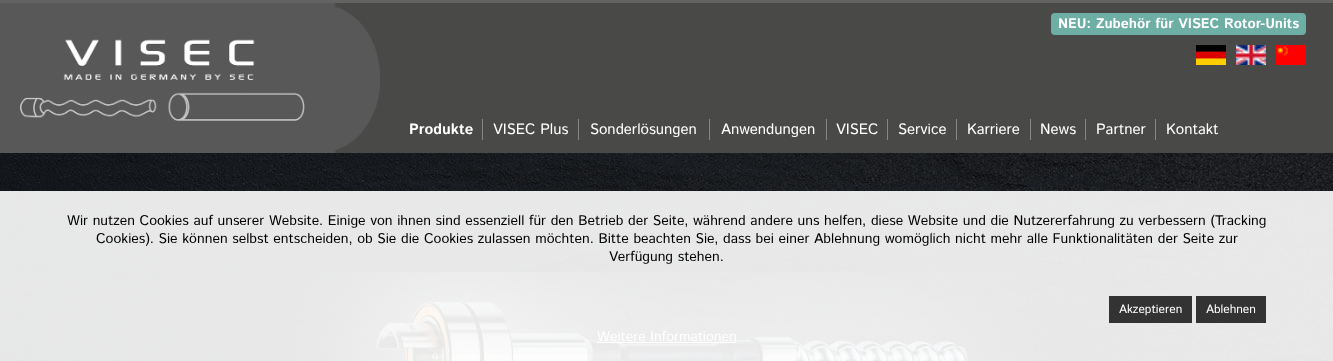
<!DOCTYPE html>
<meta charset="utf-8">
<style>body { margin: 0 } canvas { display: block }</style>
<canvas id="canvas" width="1333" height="361"></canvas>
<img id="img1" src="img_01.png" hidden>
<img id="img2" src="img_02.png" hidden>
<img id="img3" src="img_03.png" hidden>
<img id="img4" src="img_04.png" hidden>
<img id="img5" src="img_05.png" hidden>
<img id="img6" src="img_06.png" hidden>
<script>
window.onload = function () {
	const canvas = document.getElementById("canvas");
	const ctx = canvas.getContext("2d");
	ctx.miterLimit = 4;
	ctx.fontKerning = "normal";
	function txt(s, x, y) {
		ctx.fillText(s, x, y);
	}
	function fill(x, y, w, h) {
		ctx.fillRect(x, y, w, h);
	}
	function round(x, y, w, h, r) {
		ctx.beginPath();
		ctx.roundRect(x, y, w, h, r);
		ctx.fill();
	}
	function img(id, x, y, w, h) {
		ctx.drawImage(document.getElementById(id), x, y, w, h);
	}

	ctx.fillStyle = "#FFFFFF";
	fill(0, 0, 1333, 361);
	img("img1", 0, 153, 1333, 208);
	ctx.fillStyle = "#494948";
	fill(334, 3, 999, 150);
	ctx.fillStyle = "#636363";
	fill(0, 0, 1333, 3);
	img("img2", 0, 3, 380, 150);
	ctx.fillStyle = "#6DAFA4";
	round(1051, 13, 255, 22, 4);
	img("img3", 1196, 45, 30, 20);
	img("img4", 1236, 45, 30, 20);
	img("img5", 1276, 45, 30, 20);
	ctx.fillStyle = "#878786";
	fill(482, 119, 1, 21);
	fill(578, 119, 1, 21);
	fill(709, 119, 1, 21);
	fill(826, 119, 1, 21);
	fill(887, 119, 1, 21);
	fill(956, 119, 1, 21);
	fill(1030, 119, 1, 21);
	fill(1085, 119, 1, 21);
	fill(1155, 119, 1, 21);
	img("img6", 295, 272, 740, 89);
	ctx.fillStyle = "rgba(255, 255, 255, 0.9)";
	fill(0, 191, 1333, 170);
	ctx.fillStyle = "#333333";
	fill(1109, 296, 83, 27);
	fill(1196, 296, 70, 27);
	ctx.fillStyle = "#FFFFFF";
	fill(597, 342, 139, 1);
	ctx.font = "bold 14px Istok Web";
	txt("NEU: Zubehör für VISEC Rotor-Units", 1058, 28);
	ctx.font = "bold 15px Istok Web";
	txt("Produkte", 409, 134);
	ctx.font = "15px Istok Web";
	txt("VISEC Plus", 493, 134);
	txt("Sonderlösungen", 590, 134);
	txt("Anwendungen", 721, 134);
	txt("VISEC", 836, 134);
	txt("Service", 898, 134);
	txt("Karriere", 967, 134);
	txt("News", 1040, 134);
	txt("Partner", 1096, 134);
	txt("Kontakt", 1166, 134);
	ctx.font = "14px Istok Web";
	ctx.fillStyle = "#000000";
	txt("Wir nutzen Cookies auf unserer Website. Einige von ihnen sind essenziell für den Betrieb der Seite, während andere uns helfen, diese Website und die Nutzererfahrung zu verbessern (Tracking", 67, 225);
	txt("Cookies). Sie können selbst entscheiden, ob Sie die Cookies zulassen möchten. Bitte beachten Sie, dass bei einer Ablehnung womöglich nicht mehr alle Funktionalitäten der Seite zur", 96, 243);
	txt("Verfügung stehen.", 609, 261);
	ctx.font = "12px Istok Web";
	ctx.fillStyle = "#FFFFFF";
	txt("Akzeptieren", 1119, 313);
	txt("Ablehnen", 1206, 313);
	ctx.font = "14px Istok Web";
	txt("Weitere Informationen", 597, 341);
};
</script>
